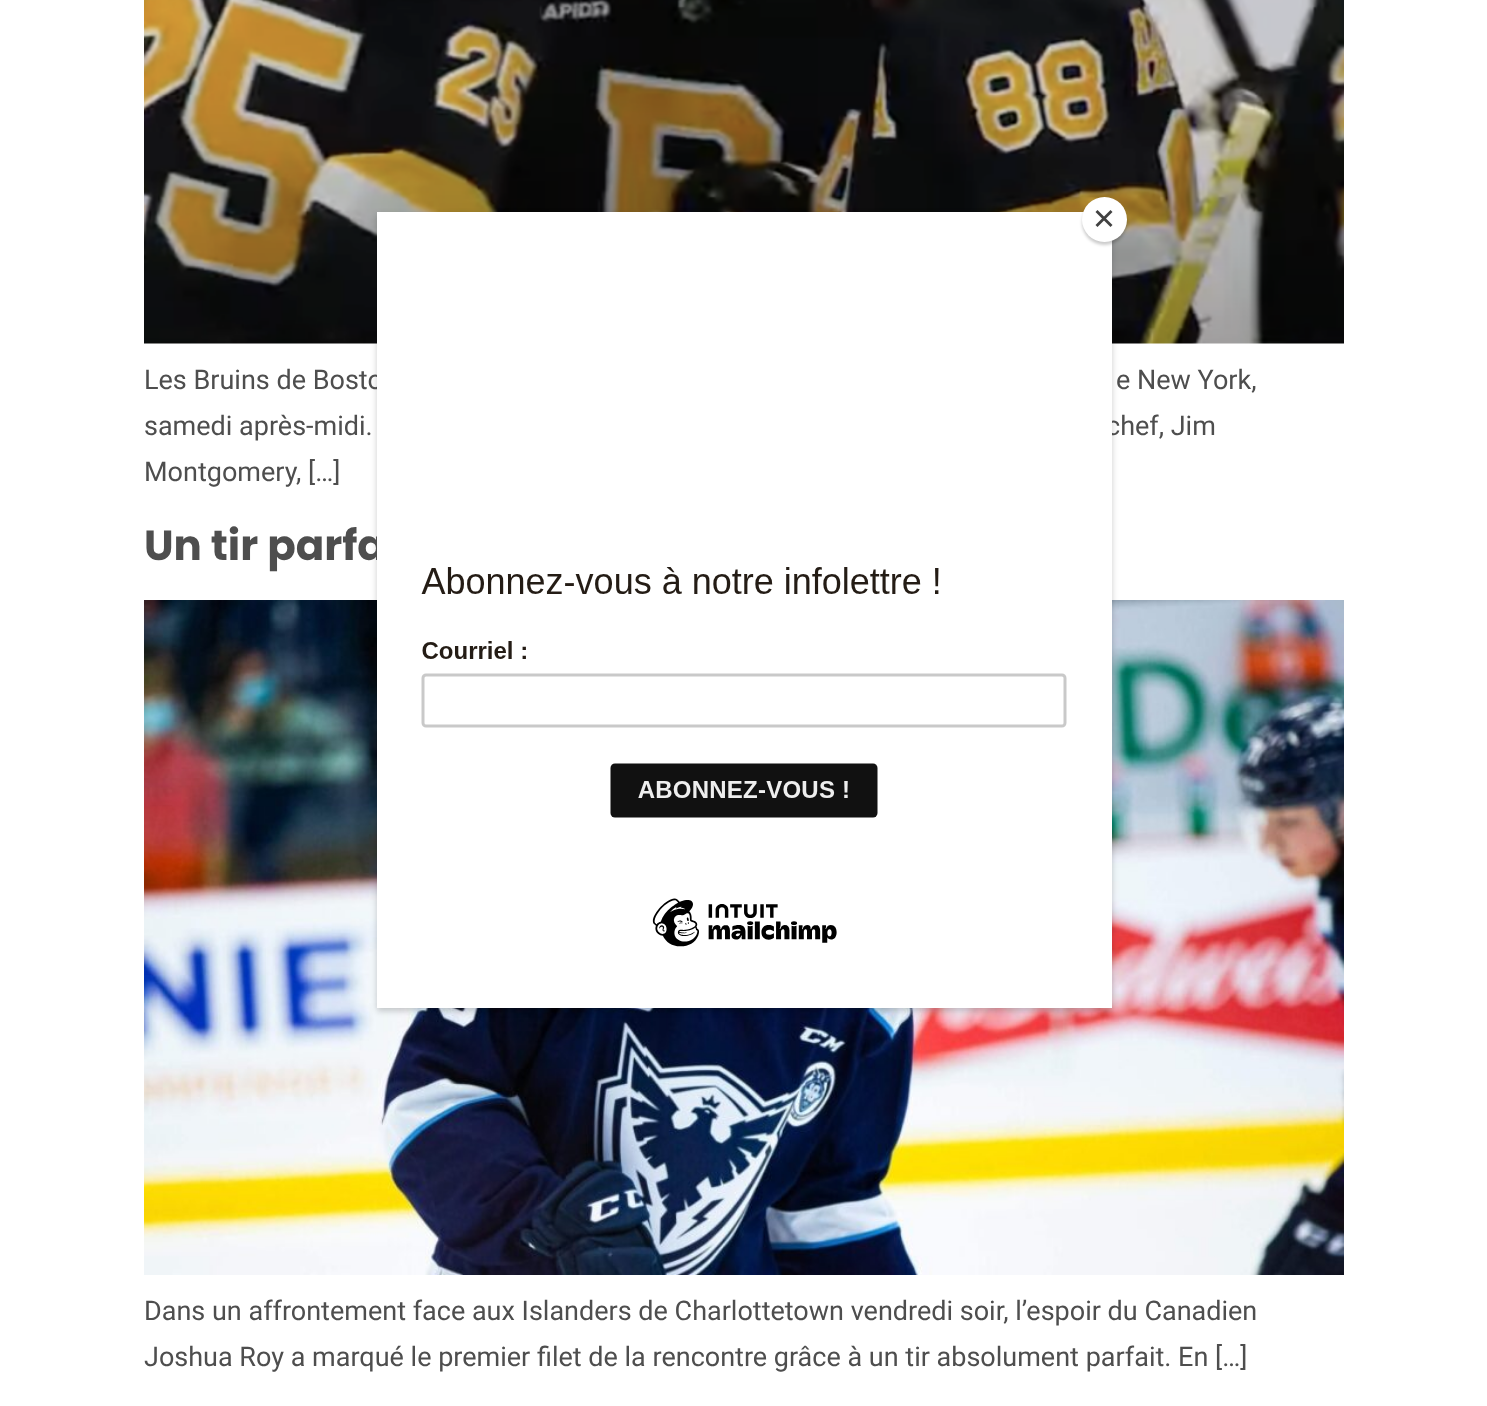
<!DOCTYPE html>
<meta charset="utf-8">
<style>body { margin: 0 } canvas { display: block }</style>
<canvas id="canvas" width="1487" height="1406"></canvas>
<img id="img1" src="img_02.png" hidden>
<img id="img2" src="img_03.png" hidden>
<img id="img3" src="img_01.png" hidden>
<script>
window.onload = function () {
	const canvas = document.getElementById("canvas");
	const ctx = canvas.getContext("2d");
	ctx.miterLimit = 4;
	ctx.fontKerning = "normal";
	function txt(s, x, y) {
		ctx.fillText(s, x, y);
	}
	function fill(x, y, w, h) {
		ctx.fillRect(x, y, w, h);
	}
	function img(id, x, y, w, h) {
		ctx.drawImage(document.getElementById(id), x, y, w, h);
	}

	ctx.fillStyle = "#FFFFFF";
	fill(0, 0, 1487, 1406);
	img("img1", 144, 0, 1200, 344);
	img("img2", 144, 600, 1200, 675);
	ctx.fillStyle = "rgba(0, 0, 0, 0.2)";
	ctx.filter = "blur(3px)";
	ctx.beginPath();
	ctx.rect(377, 215, 735, 796);
	ctx.fill();
	ctx.filter = "none";
	ctx.font = "27px Roboto";
	ctx.fillStyle = "#4E4E4E";
	txt("Les Bruins de Bosto", 144, 389);
	txt("e New York,", 1116, 389);
	txt("samedi après-midi.", 144, 435);
	txt("chef, Jim", 1106, 435);
	txt("Montgomery, […]", 144, 481);
	ctx.font = "bold 42px Poppins";
	txt("Un tir parfa", 144, 560);
	img("img3", 377, 212, 735, 796);
	ctx.fillStyle = "rgba(0, 0, 0, 0.2)";
	ctx.filter = "blur(1.5px)";
	ctx.beginPath();
	ctx.roundRect(1082, 200, 45, 45, 22.5);
	ctx.fill();
	ctx.filter = "none";
	ctx.fillStyle = "#FFFFFF";
	ctx.beginPath();
	ctx.arc(1104.5, 219.5, 22.5, 0, Math.PI * 2);
	ctx.fill();
	ctx.fillStyle = "#414141";
	ctx.beginPath();
	ctx.moveTo(1110.5, 210);
	ctx.lineTo(1112.5, 212);
	ctx.lineTo(1097.5, 227);
	ctx.lineTo(1095.5, 225);
	ctx.closePath();
	ctx.fill();
	ctx.beginPath();
	ctx.moveTo(1095.5, 212);
	ctx.lineTo(1097.5, 210);
	ctx.lineTo(1112.5, 225);
	ctx.lineTo(1110.5, 227);
	ctx.closePath();
	ctx.fill();
	ctx.font = "27px Roboto";
	ctx.fillStyle = "#4E4E4E";
	txt("Dans un affrontement face aux Islanders de Charlottetown vendredi soir, l’espoir du Canadien", 144, 1320);
	txt("Joshua Roy a marqué le premier filet de la rencontre grâce à un tir absolument parfait. En […]", 144, 1366);
};
</script>
